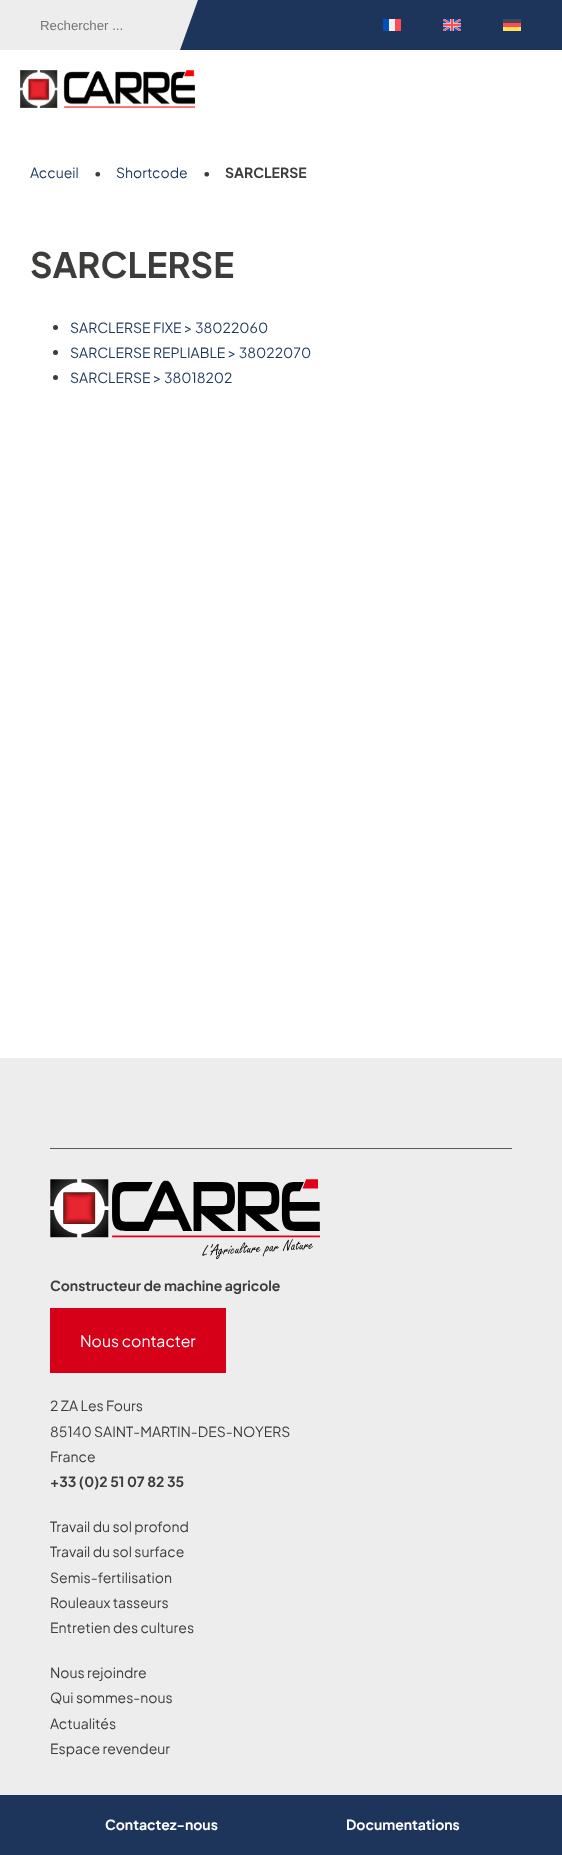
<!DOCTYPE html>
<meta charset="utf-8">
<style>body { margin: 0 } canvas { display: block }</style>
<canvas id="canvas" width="562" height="1855"></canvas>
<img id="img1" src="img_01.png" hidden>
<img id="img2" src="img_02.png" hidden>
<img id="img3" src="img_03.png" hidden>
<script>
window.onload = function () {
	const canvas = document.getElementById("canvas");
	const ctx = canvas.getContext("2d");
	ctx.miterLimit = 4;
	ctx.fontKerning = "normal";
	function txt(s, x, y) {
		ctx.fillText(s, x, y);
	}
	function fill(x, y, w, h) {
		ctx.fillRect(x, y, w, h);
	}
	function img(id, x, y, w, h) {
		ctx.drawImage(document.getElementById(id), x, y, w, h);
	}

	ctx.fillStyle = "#FFFFFF";
	fill(0, 0, 562, 1855);
	ctx.fillStyle = "#1D355B";
	fill(180, 0, 382, 50);
	ctx.fillStyle = "#EDEDED";
	fill(0, 0, 180, 50);
	ctx.beginPath();
	ctx.moveTo(180, 0);
	ctx.lineTo(180, 50);
	ctx.lineTo(198, 0);
	ctx.closePath();
	ctx.fill();
	ctx.fillStyle = "#F0F0F0";
	fill(389, 19, 6, 12);
	ctx.fillStyle = "#FF4B55";
	fill(395, 19, 6, 12);
	ctx.fillStyle = "#0052B4";
	fill(383, 19, 6, 12);
	img("img1", 443, 19, 18, 12);
	ctx.fillStyle = "#FF4B55";
	fill(503, 23, 18, 4);
	ctx.fillStyle = "#FFE15A";
	fill(503, 27, 18, 4);
	ctx.fillStyle = "#464655";
	fill(503, 19, 18, 4);
	img("img2", 20, 70, 175, 38);
	ctx.fillStyle = "#3C3C3B";
	ctx.beginPath();
	ctx.arc(55.5, 327.5, 2.5, 0, Math.PI * 2);
	ctx.fill();
	ctx.beginPath();
	ctx.arc(55.5, 352.5, 2.5, 0, Math.PI * 2);
	ctx.fill();
	ctx.beginPath();
	ctx.arc(55.5, 377.5, 2.5, 0, Math.PI * 2);
	ctx.fill();
	ctx.fillStyle = "#EDEDED";
	fill(0, 1058, 562, 737);
	ctx.fillStyle = "#5A5A58";
	fill(50, 1148, 462, 1);
	img("img3", 50, 1179, 270, 80);
	ctx.fillStyle = "#D60019";
	fill(50, 1308, 176, 65);
	ctx.fillStyle = "#1D355B";
	fill(0, 1795, 562, 60);
	ctx.font = "13.25px Liberation Sans";
	ctx.fillStyle = "#757575";
	txt("Rechercher ...", 40, 30);
	ctx.font = "14px Plus Jakarta Sans";
	ctx.fillStyle = "#1D355B";
	txt("Accueil", 30, 178);
	ctx.fillStyle = "#3C3C3B";
	txt("•", 94, 178);
	ctx.fillStyle = "#1D355B";
	txt("Shortcode", 116, 178);
	ctx.fillStyle = "#3C3C3B";
	txt("•", 203, 178);
	ctx.font = "bold 14px Plus Jakarta Sans";
	txt("SARCLERSE", 225, 178);
	ctx.font = "bold 35px Plus Jakarta Sans";
	txt("SARCLERSE", 30, 278);
	ctx.font = "14px Plus Jakarta Sans";
	ctx.fillStyle = "#1D355B";
	txt("SARCLERSE FIXE > 38022060", 70, 333);
	txt("SARCLERSE REPLIABLE > 38022070", 70, 358);
	txt("SARCLERSE > 38018202", 70, 383);
	ctx.font = "bold 14px Plus Jakarta Sans";
	ctx.fillStyle = "#3C3C3B";
	txt("Constructeur de machine agricole", 50, 1291);
	ctx.font = "15.75px Plus Jakarta Sans";
	ctx.fillStyle = "#FFFFFF";
	txt("Nous contacter", 80, 1347);
	ctx.font = "14px Plus Jakarta Sans";
	ctx.fillStyle = "#3C3C3B";
	txt("2 ZA Les Fours", 50, 1411);
	txt("85140 SAINT-MARTIN-DES-NOYERS", 50, 1437);
	txt("France", 50, 1462);
	ctx.font = "bold 14px Plus Jakarta Sans";
	txt("+33 (0)2 51 07 82 35", 50, 1487);
	ctx.font = "14px Plus Jakarta Sans";
	txt("Travail du sol profond", 50, 1532);
	txt("Travail du sol surface", 50, 1557);
	txt("Semis-fertilisation", 50, 1583);
	txt("Rouleaux tasseurs", 50, 1608);
	txt("Entretien des cultures", 50, 1633);
	txt("Nous rejoindre", 50, 1678);
	txt("Qui sommes-nous", 50, 1703);
	txt("Actualités", 50, 1729);
	txt("Espace revendeur", 50, 1754);
	ctx.font = "bold 14px Plus Jakarta Sans";
	ctx.fillStyle = "#FFFFFF";
	txt("Contactez-nous", 105, 1830);
	txt("Documentations", 346, 1830);
};
</script>
